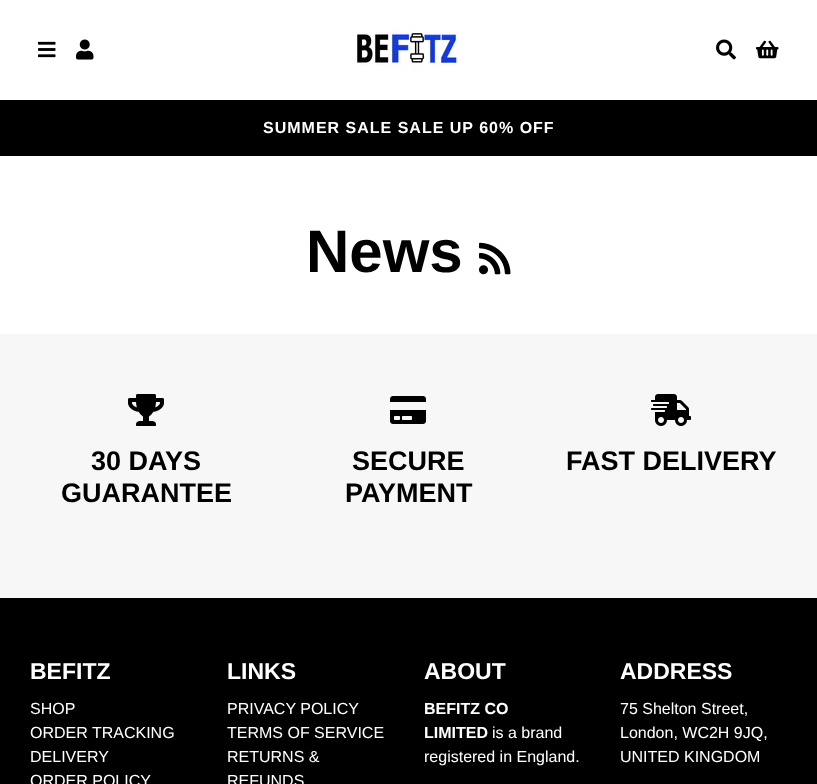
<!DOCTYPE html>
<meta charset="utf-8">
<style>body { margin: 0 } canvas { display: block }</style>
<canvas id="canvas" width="817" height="784"></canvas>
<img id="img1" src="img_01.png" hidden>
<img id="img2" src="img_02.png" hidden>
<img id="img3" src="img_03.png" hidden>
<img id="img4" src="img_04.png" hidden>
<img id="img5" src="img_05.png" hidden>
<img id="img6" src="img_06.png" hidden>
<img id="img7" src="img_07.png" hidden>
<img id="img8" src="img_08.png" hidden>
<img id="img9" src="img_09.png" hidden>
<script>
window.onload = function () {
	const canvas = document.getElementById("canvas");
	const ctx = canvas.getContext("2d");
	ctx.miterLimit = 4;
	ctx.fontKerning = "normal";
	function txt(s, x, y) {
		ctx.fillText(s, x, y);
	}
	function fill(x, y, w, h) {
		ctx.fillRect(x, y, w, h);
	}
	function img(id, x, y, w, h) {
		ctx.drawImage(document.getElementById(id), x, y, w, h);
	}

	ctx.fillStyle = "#FFFFFF";
	fill(0, 0, 817, 784);
	img("img1", 38, 41, 18, 17);
	img("img2", 76, 39, 18, 21);
	img("img3", 357, 28, 102, 40);
	img("img4", 716, 39, 20, 21);
	img("img5", 756, 40, 23, 19);
	ctx.fillStyle = "#000000";
	fill(0, 100, 817, 56);
	img("img6", 479, 242, 32, 33);
	ctx.fillStyle = "#F7F7F7";
	fill(0, 334, 817, 264);
	img("img7", 128, 394, 36, 32);
	img("img8", 390, 396, 36, 28);
	img("img9", 651, 394, 40, 32);
	ctx.fillStyle = "#000000";
	fill(0, 598, 817, 186);
	ctx.letterSpacing = "1px";
	ctx.font = "bold 16px Liberation Sans";
	ctx.fillStyle = "#FFFFFF";
	txt("SUMMER SALE SALE UP 60% OFF", 263, 133);
	ctx.letterSpacing = "0px";
	ctx.font = "bold 60px Liberation Sans";
	ctx.fillStyle = "#000000";
	txt("News", 306, 272);
	ctx.font = "bold 27px Liberation Sans";
	txt("30 DAYS", 91, 470);
	txt("GUARANTEE", 61, 502);
	txt("SECURE", 352, 470);
	txt("PAYMENT", 345, 502);
	txt("FAST DELIVERY", 566, 470);
	ctx.font = "bold 23px Liberation Sans";
	ctx.fillStyle = "#FFFFFF";
	txt("BEFITZ", 30, 679);
	ctx.font = "16px Liberation Sans";
	txt("SHOP", 30, 714);
	txt("ORDER TRACKING", 30, 738);
	txt("DELIVERY", 30, 762);
	txt("ORDER POLICY", 30, 786);
	ctx.font = "bold 23px Liberation Sans";
	txt("LINKS", 227, 679);
	ctx.font = "16px Liberation Sans";
	txt("PRIVACY POLICY", 227, 714);
	txt("TERMS OF SERVICE", 227, 738);
	txt("RETURNS &", 227, 762);
	txt("REFUNDS", 227, 786);
	ctx.font = "bold 23px Liberation Sans";
	txt("ABOUT", 424, 679);
	ctx.font = "bold 16px Liberation Sans";
	txt("BEFITZ CO", 424, 714);
	txt("LIMITED", 424, 738);
	ctx.font = "16px Liberation Sans";
	txt("is a brand", 492, 738);
	txt("registered in England.", 424, 762);
	ctx.font = "bold 23px Liberation Sans";
	txt("ADDRESS", 620, 679);
	ctx.font = "16px Liberation Sans";
	txt("75 Shelton Street,", 620, 714);
	txt("London, WC2H 9JQ,", 620, 738);
	txt("UNITED KINGDOM", 620, 762);
};
</script>
